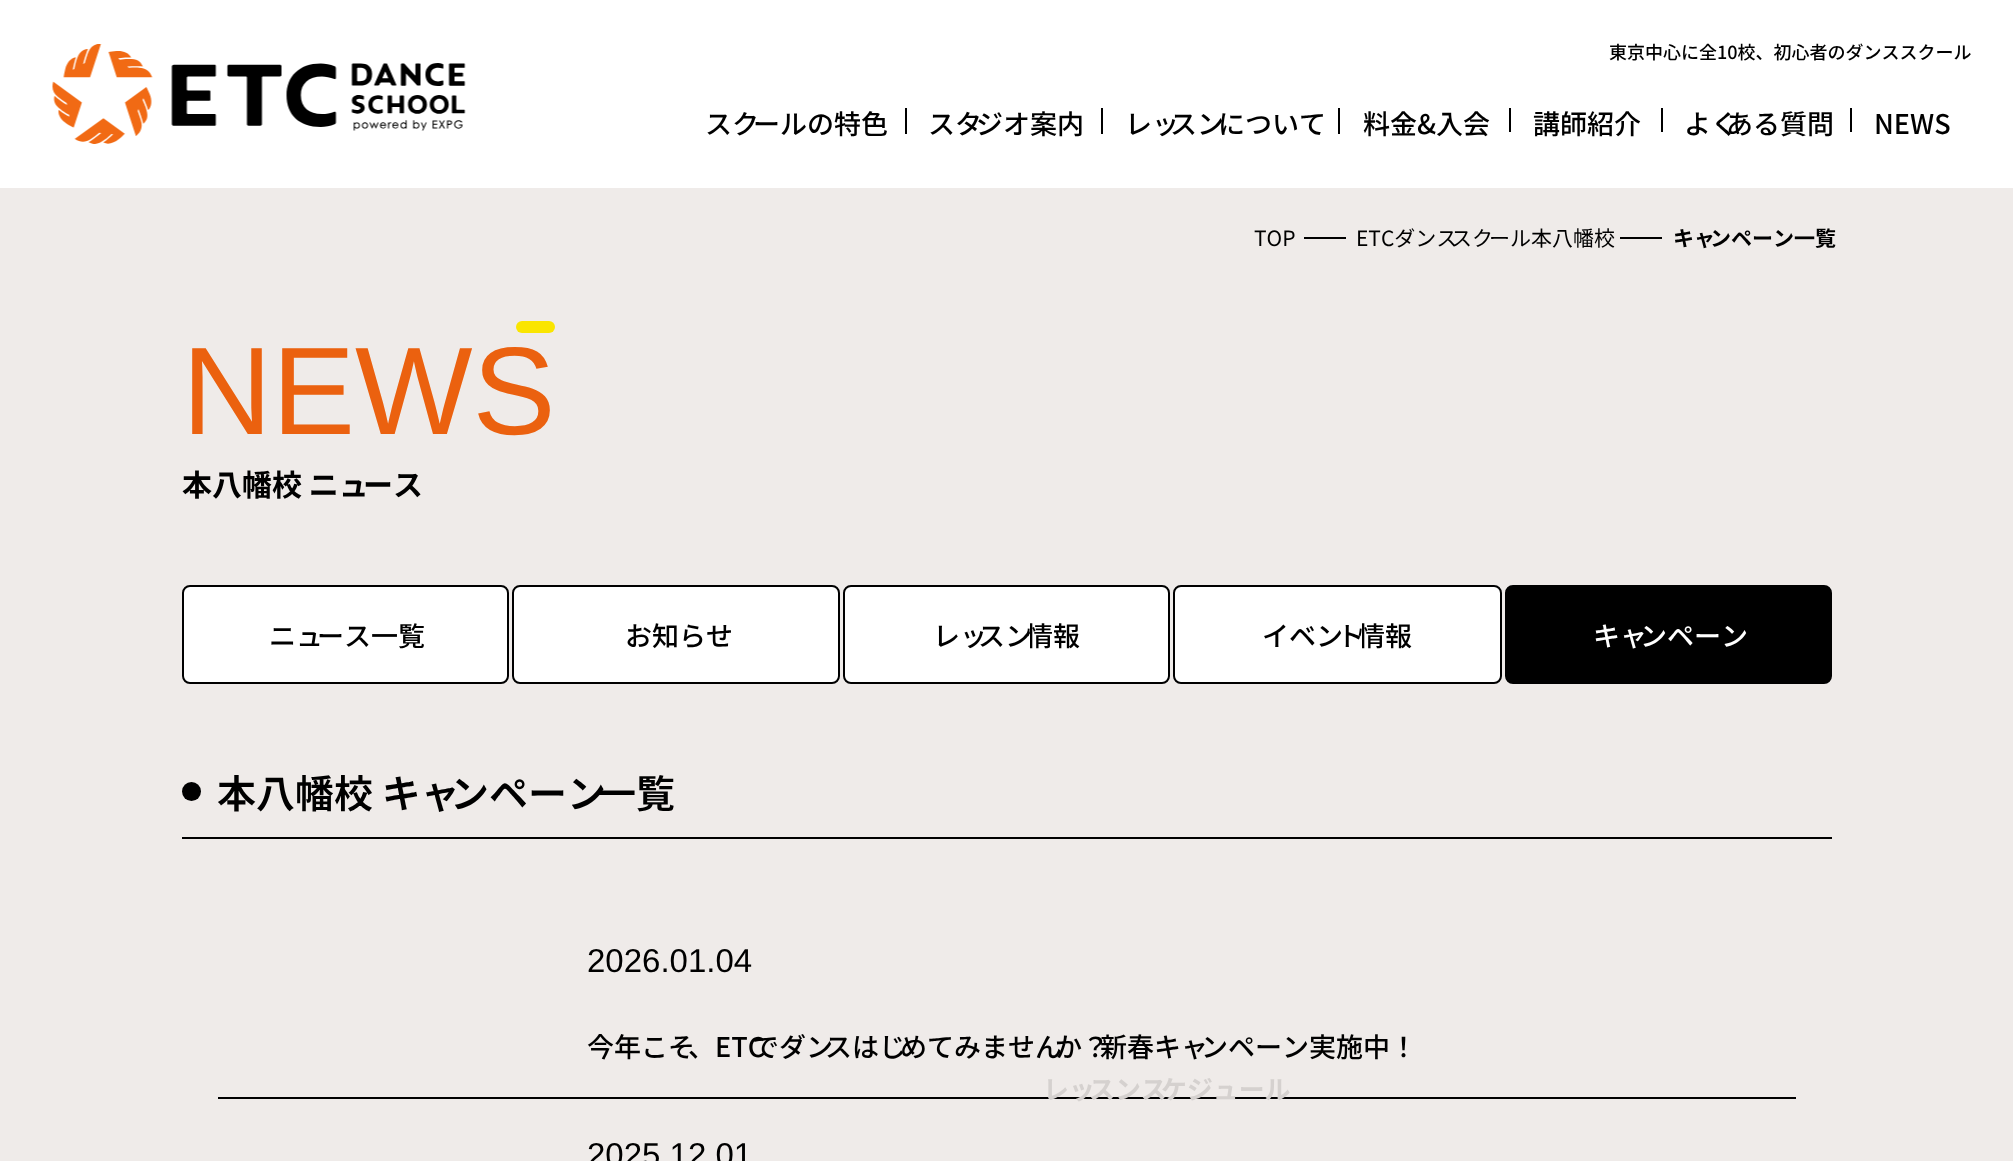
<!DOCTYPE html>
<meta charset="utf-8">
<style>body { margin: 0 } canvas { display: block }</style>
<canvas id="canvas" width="2013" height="1161"></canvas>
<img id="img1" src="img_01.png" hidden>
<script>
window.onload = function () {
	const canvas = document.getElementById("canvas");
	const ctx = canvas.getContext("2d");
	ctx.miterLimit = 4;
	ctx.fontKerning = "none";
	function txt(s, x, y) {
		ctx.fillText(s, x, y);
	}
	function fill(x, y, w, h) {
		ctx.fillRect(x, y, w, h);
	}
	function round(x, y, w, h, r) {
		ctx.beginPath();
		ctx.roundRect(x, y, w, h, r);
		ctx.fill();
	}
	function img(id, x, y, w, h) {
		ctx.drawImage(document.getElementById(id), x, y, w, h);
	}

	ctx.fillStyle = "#FFFFFF";
	fill(0, 0, 2013, 1161);
	img("img1", 52, 44, 414, 100);
	ctx.fillStyle = "#000000";
	fill(905, 108, 2, 26);
	fill(1101, 108, 2, 26);
	fill(1338, 108, 2, 26);
	fill(1509, 108, 2, 24);
	fill(1661, 108, 2, 24);
	fill(1850, 108, 2, 24);
	ctx.fillStyle = "#EFEBE9";
	fill(0, 188, 2013, 973);
	ctx.fillStyle = "#000000";
	fill(1304, 237, 42, 2);
	fill(1620, 237, 42, 2);
	ctx.fillStyle = "#FAE500";
	round(516, 321, 39, 12, 6);
	ctx.fillStyle = "#FFFFFF";
	ctx.beginPath();
	ctx.roundRect(183, 586, 325, 97, 7);
	ctx.fill();
	ctx.strokeStyle = "#000000";
	ctx.lineWidth = 2;
	ctx.stroke();
	ctx.beginPath();
	ctx.roundRect(513, 586, 326, 97, 7);
	ctx.fill();
	ctx.stroke();
	ctx.beginPath();
	ctx.roundRect(844, 586, 325, 97, 7);
	ctx.fill();
	ctx.stroke();
	ctx.beginPath();
	ctx.roundRect(1174, 586, 327, 97, 7);
	ctx.fill();
	ctx.stroke();
	ctx.fillStyle = "#000000";
	ctx.beginPath();
	ctx.roundRect(1506, 586, 325, 97, 7);
	ctx.fill();
	ctx.stroke();
	fill(182, 837, 1650, 2);
	ctx.beginPath();
	ctx.arc(191.5, 791.5, 9.5, 0, Math.PI * 2);
	ctx.fill();
	fill(218, 1097, 1578, 2);
	ctx.font = "500 18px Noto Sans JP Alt";
	txt("東京中心に全10校、初心者のダンススクール", 1609, 59);
	ctx.font = "500 27px Noto Sans JP";
	txt("スク", 705, 134);
	txt("ールの特色", 753, 134);
	txt("スタ", 928, 134);
	txt("ジオ案内", 976, 134);
	txt("レッ", 1125, 134);
	txt("スン", 1170, 134);
	txt("について", 1218, 134);
	txt("料金&入会", 1363, 134);
	txt("講師紹介", 1533, 134);
	txt("よく", 1684, 134);
	txt("ある質問", 1726, 134);
	txt("NEWS", 1874, 134);
	ctx.font = "21px Noto Sans JP";
	txt("TOP", 1254, 246);
	txt("ETCダンス", 1356, 246);
	txt("スク", 1451, 246);
	txt("ール本八幡校", 1489, 246);
	ctx.font = "bold 21px Noto Sans JP";
	txt("キャ", 1673, 246);
	txt("ンペーン一覧", 1710, 246);
	ctx.font = "124.5px Liberation Sans";
	ctx.fillStyle = "#EB610F";
	txt("NEWS", 182, 434);
	ctx.font = "bold 30px Noto Sans JP";
	ctx.fillStyle = "#000000";
	txt("本八幡校 ニュ", 182, 496);
	txt("ース", 363, 496);
	ctx.font = "500 27px Noto Sans JP";
	txt("ニュ", 269, 646);
	txt("ース一覧", 317, 646);
	txt("お知らせ", 625, 646);
	txt("レッ", 933, 646);
	txt("スン", 978, 646);
	txt("情報", 1026, 646);
	txt("イベン", 1262, 646);
	txt("ト", 1337, 646);
	txt("情報", 1358, 646);
	ctx.fillStyle = "#FFFFFF";
	txt("キャ", 1593, 646);
	txt("ンペーン", 1640, 646);
	ctx.font = "600 39px Noto Sans JP";
	ctx.fillStyle = "#000000";
	txt("本八幡校 キャ", 217, 808);
	txt("ンペーン", 450, 808);
	txt("一覧", 597, 808);
	ctx.font = "33px Liberation Sans";
	txt("2026.01.04", 587, 972);
	ctx.font = "500 27px Noto Sans JP";
	txt("今年こそ", 587, 1057);
	txt("、ETC", 688, 1057);
	txt("でダン", 752, 1057);
	txt("スはじ", 825, 1057);
	txt("めてみません", 900, 1057);
	txt("か？", 1055, 1057);
	txt("新春キャ", 1100, 1057);
	txt("ンペーン実施中！", 1201, 1057);
	ctx.font = "33px Liberation Sans";
	txt("2025.12.01", 587, 1166);
	ctx.font = "bold 25.9px Noto Sans JP";
	ctx.fillStyle = "#D5D1CF";
	txt("レッ", 1043, 1099);
	txt("スンス", 1089, 1099);
	txt("ケジュール", 1161, 1099);
};
</script>
